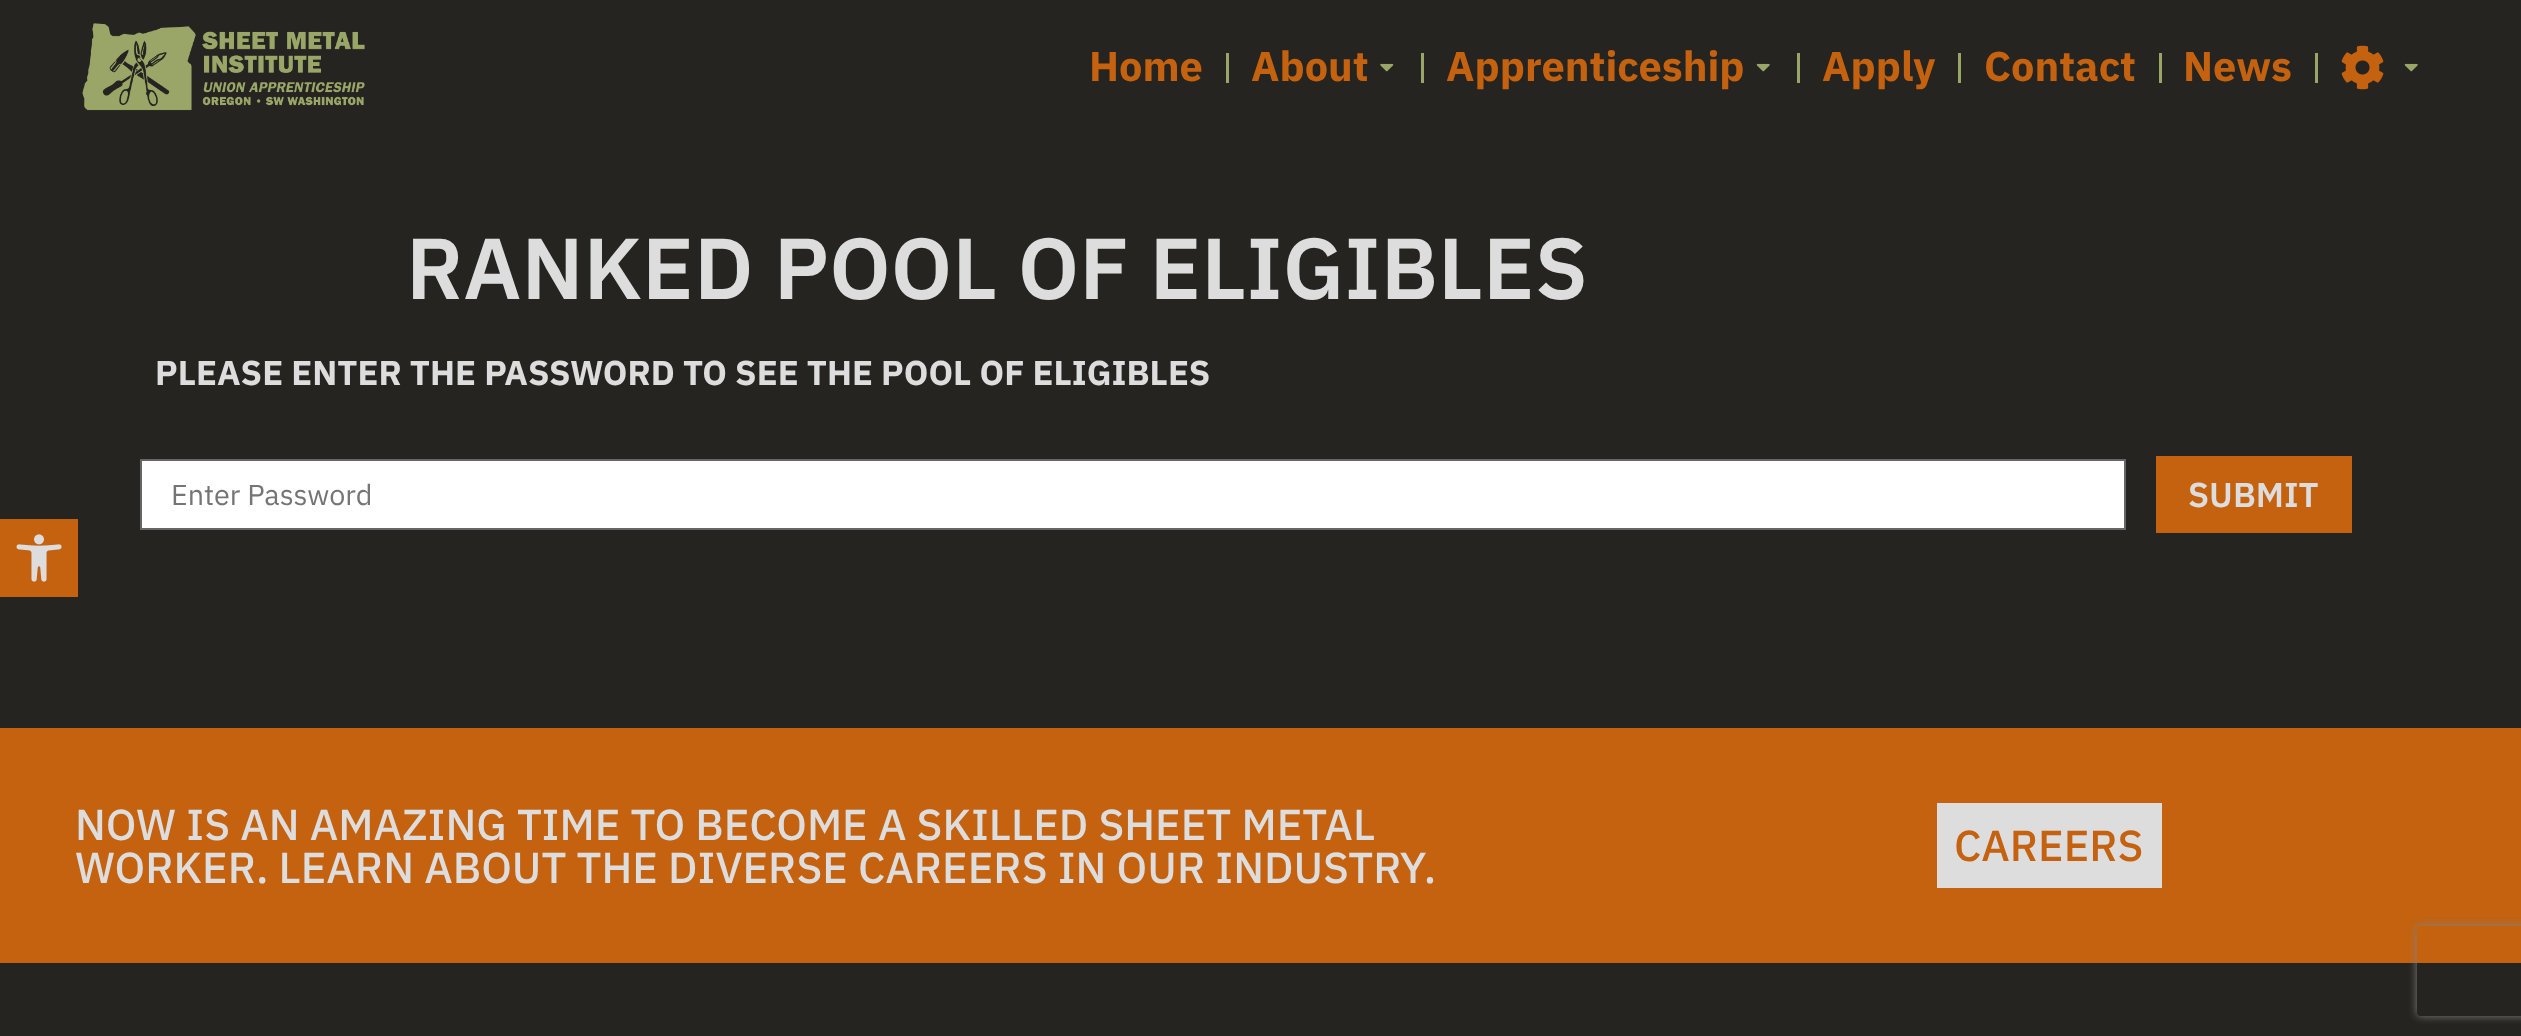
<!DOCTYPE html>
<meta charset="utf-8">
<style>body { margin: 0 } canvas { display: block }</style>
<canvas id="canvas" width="2521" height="1036"></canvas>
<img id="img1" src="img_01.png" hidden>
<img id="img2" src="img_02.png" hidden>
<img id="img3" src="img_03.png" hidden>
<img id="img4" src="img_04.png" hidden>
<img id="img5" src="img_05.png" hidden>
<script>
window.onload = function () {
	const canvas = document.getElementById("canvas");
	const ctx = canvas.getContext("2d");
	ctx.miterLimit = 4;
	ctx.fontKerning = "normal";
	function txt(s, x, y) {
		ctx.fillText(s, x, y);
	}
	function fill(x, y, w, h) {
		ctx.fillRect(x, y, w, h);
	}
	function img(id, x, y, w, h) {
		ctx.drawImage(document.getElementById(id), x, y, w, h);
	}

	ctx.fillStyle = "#252420";
	fill(0, 0, 2521, 1036);
	img("img1", 82, 23, 283, 88);
	ctx.fillStyle = "#9AA668";
	fill(1226, 53, 3, 30);
	img("img2", 1380, 63, 14, 9);
	fill(1421, 53, 3, 30);
	img("img3", 1756, 63, 14, 9);
	fill(1797, 53, 3, 30);
	fill(1958, 53, 3, 30);
	fill(2159, 53, 3, 30);
	fill(2315, 53, 3, 30);
	img("img4", 2341, 45, 43, 45);
	img("img3", 2404, 63, 14, 9);
	ctx.fillStyle = "#FFFFFF";
	ctx.beginPath();
	ctx.rect(141, 460, 1984, 69);
	ctx.fill();
	ctx.strokeStyle = "#666666";
	ctx.lineWidth = 2;
	ctx.stroke();
	ctx.fillStyle = "#C46210";
	fill(2156, 456, 196, 77);
	fill(0, 519, 78, 78);
	img("img5", 16, 534, 46, 48);
	fill(0, 728, 2521, 235);
	ctx.fillStyle = "#DDDDDD";
	fill(1937, 803, 225, 85);
	ctx.save();
	ctx.beginPath();
	ctx.moveTo(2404, 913);
	ctx.lineTo(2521, 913);
	ctx.lineTo(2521, 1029);
	ctx.lineTo(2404, 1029);
	ctx.closePath();
	ctx.moveTo(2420, 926);
	ctx.lineTo(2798, 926);
	ctx.bezierCurveTo(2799.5, 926, 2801, 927.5, 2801, 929);
	ctx.lineTo(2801, 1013);
	ctx.bezierCurveTo(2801, 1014.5, 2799.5, 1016, 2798, 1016);
	ctx.lineTo(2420, 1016);
	ctx.bezierCurveTo(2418.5, 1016, 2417, 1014.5, 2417, 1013);
	ctx.lineTo(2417, 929);
	ctx.bezierCurveTo(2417, 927.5, 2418.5, 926, 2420, 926);
	ctx.closePath();
	ctx.clip("evenodd");
	ctx.fillStyle = "#808080";
	ctx.filter = "blur(4px)";
	ctx.beginPath();
	ctx.roundRect(2417, 926, 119, 90, 3);
	ctx.fill();
	ctx.filter = "none";
	ctx.restore();
	ctx.font = "bold 41.5px IBM Plex Sans";
	ctx.fillStyle = "#C46210";
	txt("Home", 1089, 81);
	txt("About", 1251, 81);
	txt("Apprenticeship", 1446, 81);
	txt("Apply", 1822, 81);
	txt("Contact", 1984, 81);
	txt("News", 2183, 81);
	ctx.font = "600 86.4px IBM Plex Sans";
	ctx.fillStyle = "#DDDDDD";
	txt("RANKED POOL OF ELIGIBLES", 406, 299);
	ctx.font = "bold 34.55px IBM Plex Sans";
	txt("PLEASE ENTER THE PASSWORD TO SEE THE POOL OF ELIGIBLES", 155, 385);
	ctx.font = "28.75px IBM Plex Sans";
	ctx.fillStyle = "#757575";
	txt("Enter Password", 171, 505);
	ctx.font = "600 34.55px IBM Plex Sans";
	ctx.fillStyle = "#DDDDDD";
	txt("SUBMIT", 2188, 507);
	ctx.font = "500 43.2px IBM Plex Sans";
	txt("NOW IS AN AMAZING TIME TO BECOME A SKILLED SHEET METAL", 75, 840);
	txt("WORKER. LEARN ABOUT THE DIVERSE CAREERS IN OUR INDUSTRY.", 75, 883);
	ctx.fillStyle = "#C46210";
	txt("CAREERS", 1954, 861);
};
</script>
